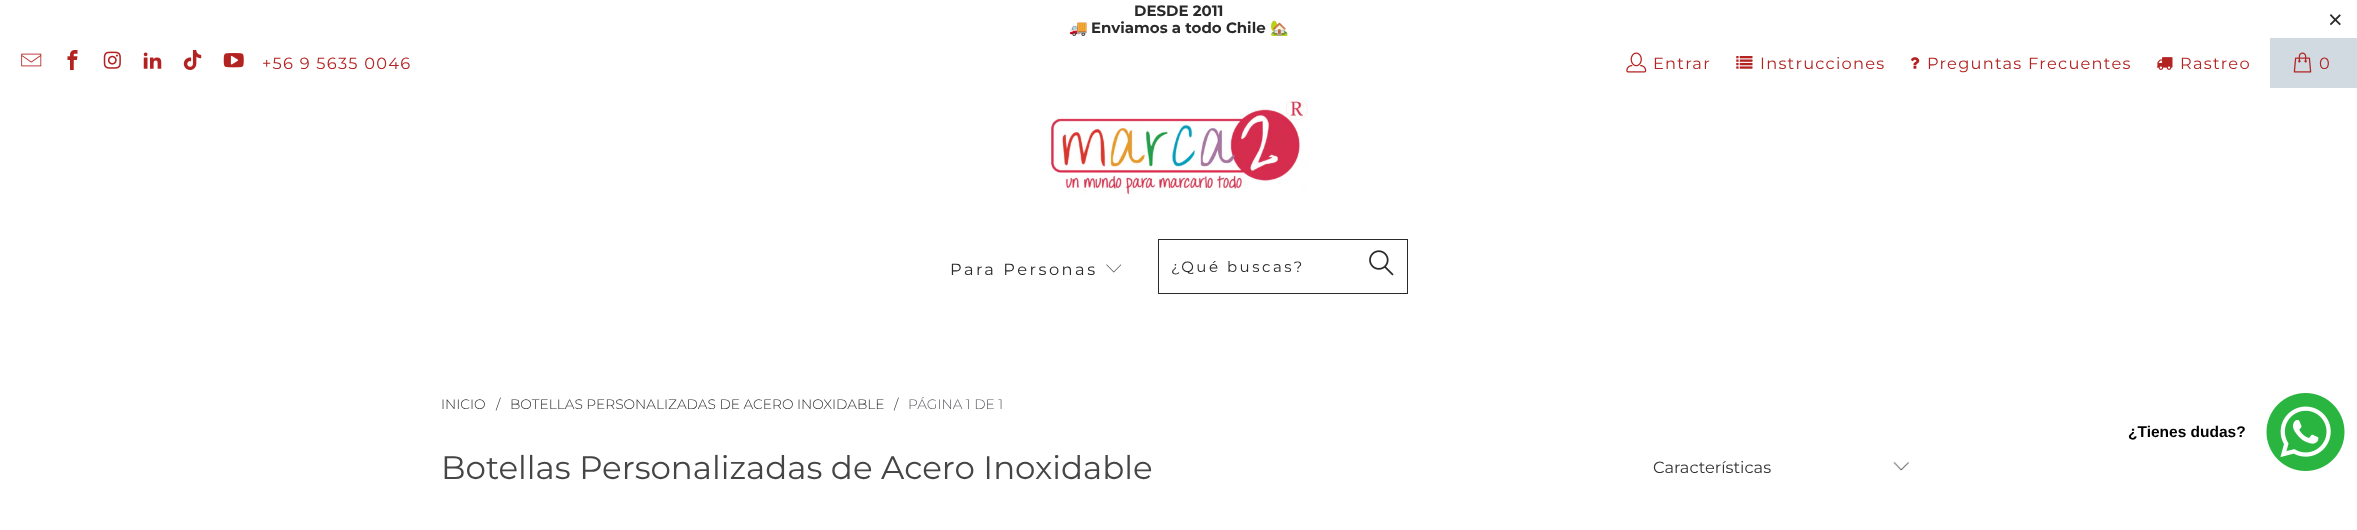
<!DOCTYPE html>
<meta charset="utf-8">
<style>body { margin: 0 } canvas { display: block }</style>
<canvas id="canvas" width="2357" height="530"></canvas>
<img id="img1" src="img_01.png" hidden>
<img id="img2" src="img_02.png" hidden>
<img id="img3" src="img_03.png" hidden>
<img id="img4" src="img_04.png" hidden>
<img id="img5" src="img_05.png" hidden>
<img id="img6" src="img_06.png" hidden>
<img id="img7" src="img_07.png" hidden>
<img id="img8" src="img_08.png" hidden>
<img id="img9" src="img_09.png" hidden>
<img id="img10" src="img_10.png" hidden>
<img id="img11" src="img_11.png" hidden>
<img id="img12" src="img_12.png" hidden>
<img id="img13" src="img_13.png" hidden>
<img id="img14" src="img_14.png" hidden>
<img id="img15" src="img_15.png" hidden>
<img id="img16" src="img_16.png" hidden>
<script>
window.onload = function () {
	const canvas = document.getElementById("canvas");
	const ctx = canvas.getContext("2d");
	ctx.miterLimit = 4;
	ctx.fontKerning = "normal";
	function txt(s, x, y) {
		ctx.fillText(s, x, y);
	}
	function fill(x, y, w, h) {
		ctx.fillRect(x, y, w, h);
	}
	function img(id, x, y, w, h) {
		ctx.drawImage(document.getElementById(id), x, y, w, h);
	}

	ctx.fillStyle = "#FFFFFF";
	fill(0, 0, 2357, 530);
	img("img1", 21, 53, 21, 14);
	img("img2", 67, 50, 11, 20);
	img("img3", 103, 51, 18, 18);
	img("img4", 143, 52, 19, 17);
	img("img5", 183, 50, 19, 20);
	img("img6", 223, 53, 21, 15);
	img("img7", 1626, 52, 21, 21);
	img("img8", 1736, 56, 17, 13);
	img("img9", 1910, 57, 10, 12);
	img("img10", 2156, 57, 17, 13);
	ctx.fillStyle = "#D1D9E1";
	fill(2270, 38, 87, 50);
	img("img11", 2293, 52, 19, 21);
	img("img12", 1051, 100, 257, 95);
	img("img13", 1106, 264, 16, 9);
	ctx.strokeStyle = "#2B2A2A";
	ctx.strokeRect(1158.5, 239.5, 249, 54);
	img("img14", 1369, 250, 25, 26);
	img("img15", 1893, 461, 16, 10);
	img("img16", 2266, 393, 79, 78);
	ctx.font = "bold 15px Montserrat";
	ctx.fillStyle = "#2B2A2A";
	txt("DESDE 2011", 1134, 16);
	ctx.font = "bold 15px Noto Color Emoji";
	txt("🚚", 1069, 33);
	ctx.font = "bold 15px Montserrat";
	txt("Enviamos a todo Chile", 1091, 33);
	ctx.font = "bold 15px Noto Color Emoji";
	txt("🏡", 1270, 33);
	ctx.font = "25px Liberation Sans";
	txt("×", 2328, 28);
	ctx.letterSpacing = "1.25px";
	ctx.font = "16.25px Montserrat";
	ctx.fillStyle = "#B22321";
	txt("+56 9 5635 0046", 262, 69);
	txt("Entrar", 1653, 69);
	txt("Instrucciones", 1760, 69);
	txt("Preguntas Frecuentes", 1927, 69);
	txt("Rastreo", 2180, 69);
	txt("0", 2319, 69);
	ctx.letterSpacing = "2.5px";
	ctx.fillStyle = "#2B2A2A";
	txt("Para Personas", 950, 275);
	ctx.font = "15px Montserrat";
	txt("¿Qué buscas?", 1171, 272);
	ctx.letterSpacing = "0px";
	ctx.font = "300 13.75px Montserrat";
	txt("INICIO", 441, 409);
	txt("/", 496, 409);
	txt("BOTELLAS PERSONALIZADAS DE ACERO INOXIDABLE", 510, 409);
	txt("/", 894, 409);
	ctx.fillStyle = "#56575D";
	txt("PÁGINA 1 DE 1", 908, 409);
	ctx.font = "32.5px Montserrat";
	ctx.fillStyle = "#454545";
	txt("Botellas Personalizadas de Acero Inoxidable", 441, 479);
	ctx.font = "16.25px Montserrat";
	ctx.fillStyle = "#333333";
	txt("Características", 1653, 473);
	ctx.font = "bold 15.5px Liberation Sans";
	ctx.fillStyle = "#000000";
	txt("¿Tienes dudas?", 2128, 437);
};
</script>
